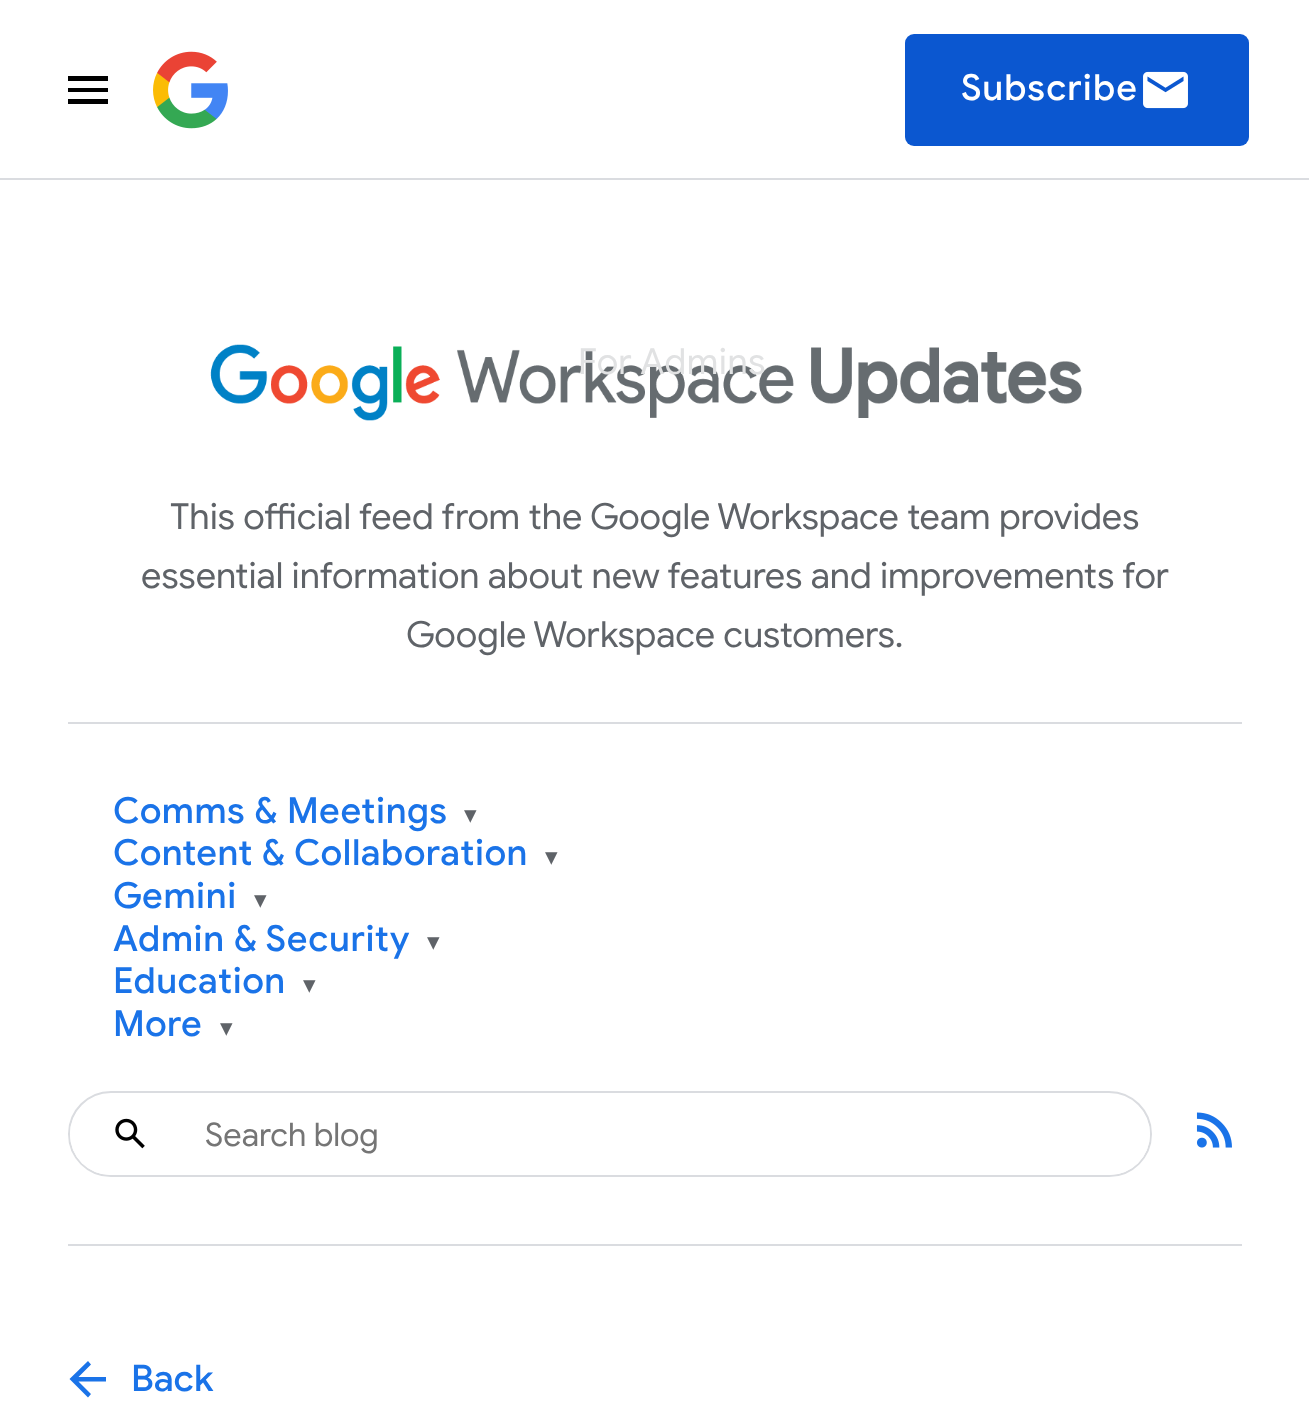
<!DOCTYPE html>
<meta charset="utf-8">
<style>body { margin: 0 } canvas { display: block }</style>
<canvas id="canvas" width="1309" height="1413"></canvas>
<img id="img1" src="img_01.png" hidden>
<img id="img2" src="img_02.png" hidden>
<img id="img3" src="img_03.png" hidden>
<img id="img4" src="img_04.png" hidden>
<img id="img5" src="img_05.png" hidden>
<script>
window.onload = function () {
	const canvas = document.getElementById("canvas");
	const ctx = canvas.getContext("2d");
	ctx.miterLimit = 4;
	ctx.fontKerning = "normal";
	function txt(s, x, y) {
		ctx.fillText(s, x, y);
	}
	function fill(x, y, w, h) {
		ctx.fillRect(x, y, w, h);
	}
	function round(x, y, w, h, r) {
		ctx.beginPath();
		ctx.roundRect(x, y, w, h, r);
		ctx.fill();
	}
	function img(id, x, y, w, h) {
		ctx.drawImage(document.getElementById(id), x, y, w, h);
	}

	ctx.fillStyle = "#FFFFFF";
	fill(0, 0, 1309, 1413);
	ctx.fillStyle = "#DADCE0";
	fill(0, 178, 1309, 2);
	ctx.fillStyle = "#000000";
	ctx.beginPath();
	ctx.moveTo(68, 104);
	ctx.lineTo(108, 104);
	ctx.lineTo(108, 99);
	ctx.lineTo(68, 99);
	ctx.closePath();
	ctx.moveTo(68, 92);
	ctx.lineTo(108, 92);
	ctx.lineTo(108, 88);
	ctx.lineTo(68, 88);
	ctx.closePath();
	ctx.moveTo(68, 76);
	ctx.lineTo(68, 81);
	ctx.lineTo(108, 81);
	ctx.lineTo(108, 76);
	ctx.closePath();
	ctx.fill();
	img("img1", 153, 51, 75, 78);
	ctx.fillStyle = "#0B57D0";
	round(905, 34, 344, 112, 9);
	img("img2", 1143, 71, 45, 38);
	img("img3", 210, 344, 872, 77);
	ctx.fillStyle = "#DADCE0";
	fill(68, 722, 1174, 2);
	ctx.beginPath();
	ctx.roundRect(69, 1092, 1082, 84, 42);
	ctx.strokeStyle = "#DADCE0";
	ctx.lineWidth = 2;
	ctx.stroke();
	ctx.fillStyle = "#FFFFFF";
	round(70, 1094, 1080, 81, 40.5);
	img("img4", 115, 1118, 30, 31);
	img("img5", 1196, 1112, 36, 36);
	ctx.fillStyle = "#DADCE0";
	fill(68, 1244, 1174, 2);
	ctx.fillStyle = "#1A73E8";
	ctx.beginPath();
	ctx.moveTo(106, 1377);
	ctx.lineTo(106, 1381.5);
	ctx.lineTo(78.5, 1381.5);
	ctx.lineTo(91, 1394);
	ctx.lineTo(88, 1397.5);
	ctx.lineTo(69.5, 1379);
	ctx.lineTo(88, 1361);
	ctx.lineTo(91, 1364.5);
	ctx.lineTo(78.5, 1377);
	ctx.closePath();
	ctx.fill();
	ctx.letterSpacing = "1.1px";
	ctx.font = "500 36px Google Sans";
	ctx.fillStyle = "#FFFFFF";
	txt("Subscribe", 961, 100);
	ctx.letterSpacing = "0.6px";
	ctx.font = "36px Google Sans";
	ctx.fillStyle = "#E1E2E3";
	txt("For Admins", 578, 374);
	ctx.letterSpacing = "0px";
	ctx.fillStyle = "#5F6368";
	txt("This official feed from the Google Workspace team provides", 170, 529);
	txt("essential information about new features and improvements for", 141, 588);
	txt("Google Workspace customers.", 406, 647);
	ctx.letterSpacing = "0.6px";
	ctx.font = "500 36px Google Sans";
	ctx.fillStyle = "#1A73E8";
	txt("Comms & Meetings", 113, 823);
	ctx.font = "25px DejaVu Sans";
	ctx.fillStyle = "#5F6368";
	txt("▾", 464, 823);
	ctx.font = "500 36px Google Sans";
	ctx.fillStyle = "#1A73E8";
	txt("Content & Collaboration", 113, 865);
	ctx.font = "25px DejaVu Sans";
	ctx.fillStyle = "#5F6368";
	txt("▾", 545, 865);
	ctx.font = "500 36px Google Sans";
	ctx.fillStyle = "#1A73E8";
	txt("Gemini", 113, 908);
	ctx.font = "25px DejaVu Sans";
	ctx.fillStyle = "#5F6368";
	txt("▾", 254, 908);
	ctx.font = "500 36px Google Sans";
	ctx.fillStyle = "#1A73E8";
	txt("Admin & Security", 113, 951);
	ctx.font = "25px DejaVu Sans";
	ctx.fillStyle = "#5F6368";
	txt("▾", 427, 950);
	ctx.font = "500 36px Google Sans";
	ctx.fillStyle = "#1A73E8";
	txt("Education", 113, 993);
	ctx.font = "25px DejaVu Sans";
	ctx.fillStyle = "#5F6368";
	txt("▾", 303, 993);
	ctx.font = "500 36px Google Sans";
	ctx.fillStyle = "#1A73E8";
	txt("More", 113, 1036);
	ctx.font = "25px DejaVu Sans";
	ctx.fillStyle = "#5F6368";
	txt("▾", 220, 1036);
	ctx.letterSpacing = "0px";
	ctx.font = "32.5px Google Sans";
	ctx.fillStyle = "#757575";
	txt("Search blog", 205, 1146);
	ctx.font = "500 36.5px Google Sans";
	ctx.fillStyle = "#1A73E8";
	txt("Back", 131, 1391);
};
</script>
